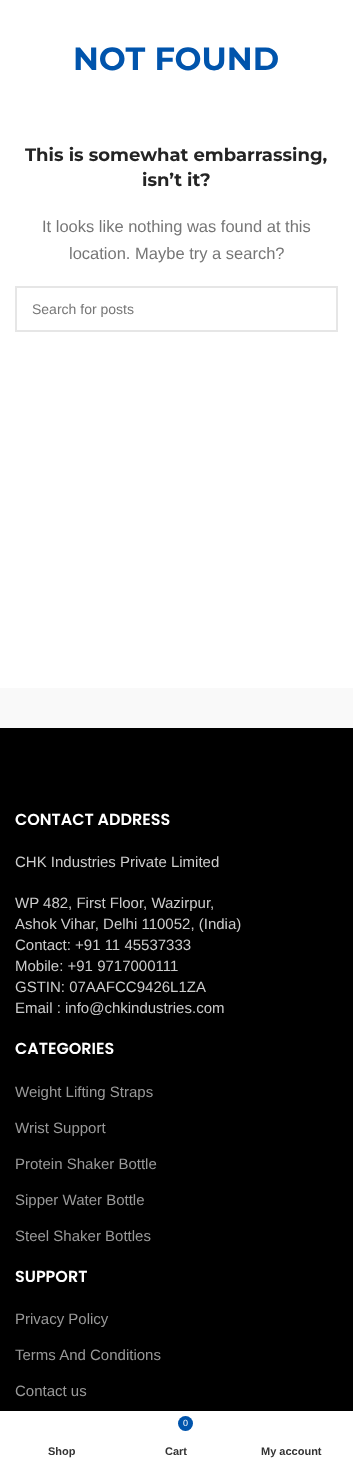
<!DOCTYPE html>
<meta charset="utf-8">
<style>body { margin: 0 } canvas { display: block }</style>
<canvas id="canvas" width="353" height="1466"></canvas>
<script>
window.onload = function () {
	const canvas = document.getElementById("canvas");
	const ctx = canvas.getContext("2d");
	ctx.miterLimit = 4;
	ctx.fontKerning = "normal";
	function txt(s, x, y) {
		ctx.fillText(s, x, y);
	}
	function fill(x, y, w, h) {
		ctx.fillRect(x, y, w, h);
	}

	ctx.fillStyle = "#FFFFFF";
	fill(0, 0, 353, 1466);
	ctx.strokeStyle = "#E6E6E6";
	ctx.lineWidth = 2;
	ctx.strokeRect(16, 287, 321, 44);
	ctx.fillStyle = "#F9F9F9";
	fill(0, 688, 353, 40);
	ctx.fillStyle = "#000000";
	fill(0, 728, 353, 683);
	ctx.fillStyle = "#0054AC";
	ctx.beginPath();
	ctx.arc(185.5, 1423.5, 7.5, 0, Math.PI * 2);
	ctx.fill();
	ctx.font = "bold 32px Montserrat";
	txt("NOT FOUND", 73, 70);
	ctx.font = "bold 18px Montserrat";
	ctx.fillStyle = "#242424";
	txt("This is somewhat embarrassing,", 25, 161);
	txt("isn’t it?", 142, 186);
	ctx.font = "16.5px Liberation Sans";
	ctx.fillStyle = "#767676";
	txt("It looks like nothing was found at this", 42, 232);
	txt("location. Maybe try a search?", 69, 259);
	ctx.font = "14px Liberation Sans";
	txt("Search for posts", 32, 314);
	ctx.font = "600 16px Poppins";
	ctx.fillStyle = "#FFFFFF";
	txt("CONTACT ADDRESS", 15, 825);
	ctx.font = "15px Liberation Sans";
	ctx.fillStyle = "#CCCCCC";
	txt("CHK Industries Private Limited", 15, 867);
	txt("WP 482, First Floor, Wazirpur,", 15, 908);
	txt("Ashok Vihar, Delhi 110052, (India)", 15, 929);
	txt("Contact: +91 11 45537333", 15, 950);
	txt("Mobile: +91 9717000111", 15, 971);
	txt("GSTIN: 07AAFCC9426L1ZA", 15, 992);
	txt("Email : info@chkindustries.com", 15, 1013);
	ctx.font = "600 16px Poppins";
	ctx.fillStyle = "#FFFFFF";
	txt("CATEGORIES", 15, 1054);
	ctx.font = "15px Liberation Sans";
	ctx.fillStyle = "#999999";
	txt("Weight Lifting Straps", 15, 1097);
	txt("Wrist Support", 15, 1133);
	txt("Protein Shaker Bottle", 15, 1169);
	txt("Sipper Water Bottle", 15, 1205);
	txt("Steel Shaker Bottles", 15, 1241);
	ctx.font = "600 16px Poppins";
	ctx.fillStyle = "#FFFFFF";
	txt("SUPPORT", 15, 1282);
	ctx.font = "15px Liberation Sans";
	ctx.fillStyle = "#999999";
	txt("Privacy Policy", 15, 1324);
	txt("Terms And Conditions", 15, 1360);
	txt("Contact us", 15, 1396);
	ctx.font = "bold 11px Liberation Sans";
	ctx.fillStyle = "#333333";
	txt("Shop", 48, 1455);
	ctx.font = "9px Liberation Sans";
	ctx.fillStyle = "#FFFFFF";
	txt("0", 183, 1426);
	ctx.font = "bold 11px Liberation Sans";
	ctx.fillStyle = "#333333";
	txt("Cart", 165, 1455);
	txt("My account", 261, 1455);
};
</script>
